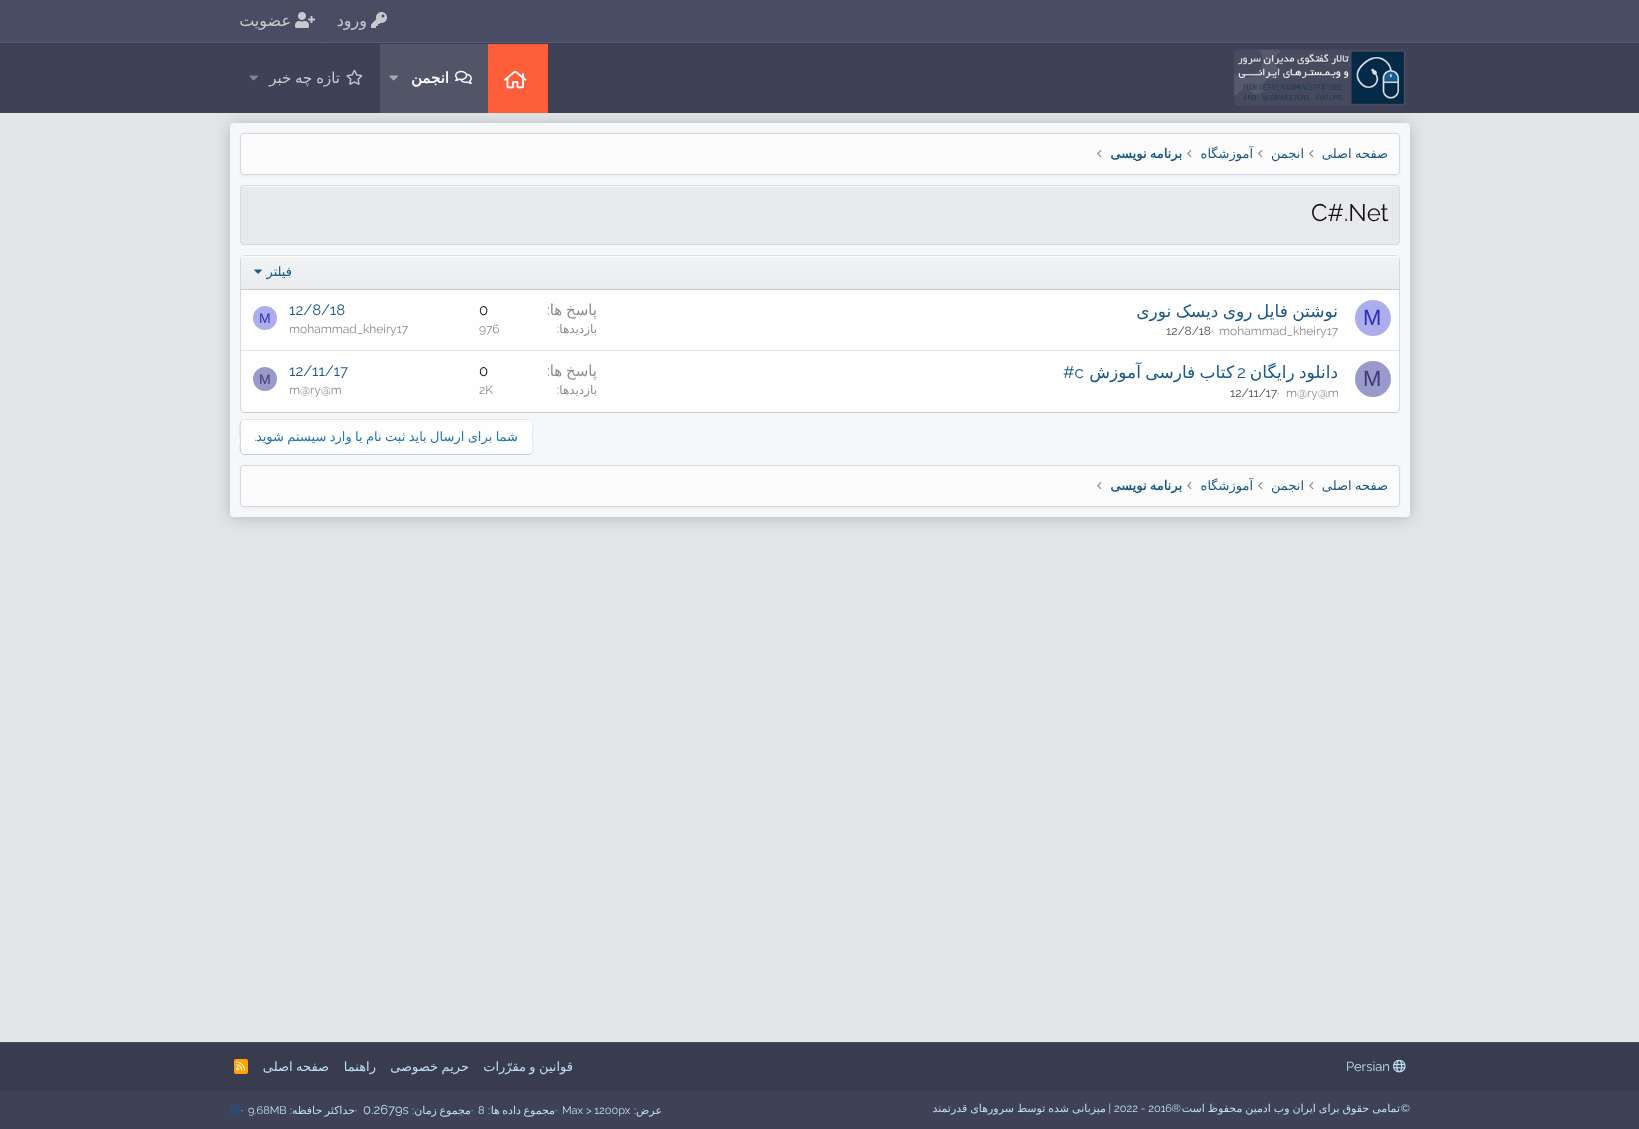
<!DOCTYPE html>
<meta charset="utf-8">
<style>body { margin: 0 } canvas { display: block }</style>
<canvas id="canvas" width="1639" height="1129"></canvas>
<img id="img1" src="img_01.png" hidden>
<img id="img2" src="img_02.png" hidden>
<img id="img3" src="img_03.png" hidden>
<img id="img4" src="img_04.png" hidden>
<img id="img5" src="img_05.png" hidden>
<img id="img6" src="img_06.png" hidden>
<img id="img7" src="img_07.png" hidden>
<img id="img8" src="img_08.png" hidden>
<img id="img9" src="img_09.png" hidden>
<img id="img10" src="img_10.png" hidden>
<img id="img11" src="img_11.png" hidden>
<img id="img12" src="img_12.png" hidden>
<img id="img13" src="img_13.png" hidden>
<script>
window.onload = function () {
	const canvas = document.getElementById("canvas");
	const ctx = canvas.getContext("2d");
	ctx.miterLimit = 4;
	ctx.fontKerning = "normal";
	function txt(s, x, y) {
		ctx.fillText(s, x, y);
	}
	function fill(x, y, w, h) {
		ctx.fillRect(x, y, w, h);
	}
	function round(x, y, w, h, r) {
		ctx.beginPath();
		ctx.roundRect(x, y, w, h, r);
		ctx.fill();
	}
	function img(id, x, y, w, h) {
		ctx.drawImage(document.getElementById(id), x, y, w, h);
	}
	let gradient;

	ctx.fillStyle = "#E2E6E9";
	fill(0, 0, 1639, 1129);
	ctx.fillStyle = "#494C62";
	fill(0, 0, 1639, 42);
	ctx.fillStyle = "#595C70";
	fill(0, 42, 1639, 1);
	img("img1", 371, 12, 16, 16);
	ctx.fillStyle = "#46495E";
	fill(325, 0, 1, 42);
	img("img2", 295, 12, 20, 16);
	ctx.fillStyle = "rgba(0, 0, 0, 0.2)";
	ctx.filter = "blur(8px)";
	ctx.beginPath();
	ctx.roundRect(230, 124, 1180, 394, 4);
	ctx.fill();
	ctx.filter = "none";
	ctx.fillStyle = "#3F4257";
	fill(0, 43, 1639, 70);
	img("img3", 1234, 49, 172, 57);
	ctx.fillStyle = "#FF5E3A";
	fill(488, 44, 60, 69);
	img("img4", 504, 70, 23, 19);
	ctx.fillStyle = "#525568";
	fill(380, 44, 108, 69);
	img("img5", 455, 70, 17, 14);
	img("img6", 389, 75, 9, 6);
	img("img7", 346, 69, 17, 16);
	img("img8", 249, 75, 9, 6);
	ctx.fillStyle = "#F5F8FA";
	round(230, 123, 1180, 394, 4);
	ctx.fillStyle = "rgba(0, 0, 0, 0.05)";
	ctx.filter = "blur(1.5px)";
	ctx.beginPath();
	ctx.roundRect(240, 134, 1160, 42, 4);
	ctx.fill();
	ctx.filter = "none";
	ctx.fillStyle = "#FBFBFB";
	ctx.beginPath();
	ctx.roundRect(240.5, 133.5, 1159, 41, 3.5);
	ctx.fill();
	ctx.strokeStyle = "#D7D9DF";
	ctx.stroke();
	img("img9", 1309, 150, 5, 8);
	img("img9", 1258, 150, 5, 8);
	img("img9", 1187, 150, 5, 8);
	img("img9", 1097, 150, 5, 8);
	ctx.fillStyle = "#E8E9ED";
	round(240, 185, 1160, 60, 4);
	ctx.fillStyle = "#F8F8FA";
	ctx.beginPath();
	ctx.moveTo(244, 187);
	ctx.lineTo(1396, 187);
	ctx.bezierCurveTo(1398, 187, 1399, 188, 1399, 190);
	ctx.lineTo(1399, 189);
	ctx.bezierCurveTo(1399, 187, 1398, 186, 1396, 186);
	ctx.lineTo(244, 186);
	ctx.bezierCurveTo(242, 186, 241, 187, 241, 189);
	ctx.lineTo(241, 190);
	ctx.bezierCurveTo(241, 188, 242, 187, 244, 187);
	ctx.closePath();
	ctx.fill();
	ctx.beginPath();
	ctx.roundRect(240.5, 185.5, 1159, 59, 3.5);
	ctx.stroke();
	ctx.fillStyle = "#FEFEFE";
	round(240, 255, 1160, 158, 4);
	ctx.beginPath();
	ctx.moveTo(241.5, 256.5);
	ctx.lineTo(244, 255.5);
	ctx.lineTo(1396, 255.5);
	ctx.lineTo(1398.5, 256.5);
	ctx.strokeStyle = "#DFDFDF";
	ctx.stroke();
	ctx.beginPath();
	ctx.moveTo(1398.5, 256.5);
	ctx.bezierCurveTo(1399, 257, 1399.5, 258, 1399.5, 259);
	ctx.lineTo(1399.5, 409);
	ctx.bezierCurveTo(1399.5, 410, 1399, 411, 1398.5, 411.5);
	ctx.strokeStyle = "#D8D8D8";
	ctx.stroke();
	ctx.beginPath();
	ctx.moveTo(1398.5, 411.5);
	ctx.lineTo(1396, 412.5);
	ctx.lineTo(244, 412.5);
	ctx.lineTo(241.5, 411.5);
	ctx.strokeStyle = "#CBCBCB";
	ctx.stroke();
	ctx.beginPath();
	ctx.moveTo(241.5, 411.5);
	ctx.bezierCurveTo(241, 411, 240.5, 410, 240.5, 409);
	ctx.lineTo(240.5, 259);
	ctx.bezierCurveTo(240.5, 258, 241, 257, 241.5, 256.5);
	ctx.strokeStyle = "#D8D8D8";
	ctx.stroke();
	ctx.fillStyle = "#EBECEF";
	ctx.beginPath();
	ctx.roundRect(241, 256, 1158, 34, [3, 3, 0, 0]);
	ctx.fill();
	gradient = ctx.createLinearGradient(820, 256, 820, 289);
	gradient.addColorStop(0, "rgba(255, 255, 255, 0.35)");
	gradient.addColorStop(1, "rgba(255, 255, 255, 0)");
	ctx.fillStyle = gradient;
	ctx.beginPath();
	ctx.roundRect(241, 256, 1158, 33, [3, 3, 0, 0]);
	ctx.fill();
	ctx.fillStyle = "rgba(255, 255, 255, 0.7)";
	ctx.beginPath();
	ctx.moveTo(244, 257);
	ctx.lineTo(1396, 257);
	ctx.bezierCurveTo(1398, 257, 1399, 258, 1399, 260);
	ctx.lineTo(1399, 259);
	ctx.bezierCurveTo(1399, 257, 1398, 256, 1396, 256);
	ctx.lineTo(244, 256);
	ctx.bezierCurveTo(242, 256, 241, 257, 241, 259);
	ctx.lineTo(241, 260);
	ctx.bezierCurveTo(241, 258, 242, 257, 244, 257);
	ctx.closePath();
	ctx.fill();
	ctx.fillStyle = "#CBCBCB";
	fill(241, 289, 1158, 1);
	img("img10", 254, 269, 8, 5);
	ctx.fillStyle = "#ADADEB";
	ctx.beginPath();
	ctx.arc(1373, 318, 18, 0, Math.PI * 2);
	ctx.fill();
	ctx.beginPath();
	ctx.arc(265, 318, 12, 0, Math.PI * 2);
	ctx.fill();
	ctx.fillStyle = "#E7E7E7";
	fill(241, 350, 1158, 1);
	ctx.fillStyle = "#9999CC";
	ctx.beginPath();
	ctx.arc(1373, 379, 18, 0, Math.PI * 2);
	ctx.fill();
	ctx.beginPath();
	ctx.arc(265, 379, 12, 0, Math.PI * 2);
	ctx.fill();
	ctx.fillStyle = "#FEFEFE";
	round(240, 419, 293, 36, 4);
	ctx.beginPath();
	ctx.moveTo(241.5, 420.5);
	ctx.lineTo(244, 419.5);
	ctx.lineTo(529, 419.5);
	ctx.bezierCurveTo(534.5, 419.5, 532.5, 430, 532.5, 432.5);
	ctx.bezierCurveTo(532.5, 436, 534, 451, 531.5, 453.5);
	ctx.strokeStyle = "#E5E5E5";
	ctx.stroke();
	ctx.beginPath();
	ctx.moveTo(531.5, 453.5);
	ctx.lineTo(529, 454.5);
	ctx.lineTo(244, 454.5);
	ctx.bezierCurveTo(238.5, 454.5, 240.5, 444, 240.5, 441.5);
	ctx.bezierCurveTo(240.5, 438, 239, 423, 241.5, 420.5);
	ctx.strokeStyle = "#CBCBCB";
	ctx.stroke();
	ctx.fillStyle = "rgba(0, 0, 0, 0.05)";
	ctx.filter = "blur(1.5px)";
	ctx.beginPath();
	ctx.roundRect(240, 466, 1160, 42, 4);
	ctx.fill();
	ctx.filter = "none";
	ctx.fillStyle = "#FBFBFB";
	ctx.beginPath();
	ctx.roundRect(240.5, 465.5, 1159, 41, 3.5);
	ctx.fill();
	ctx.strokeStyle = "#D7D9DF";
	ctx.stroke();
	img("img9", 1309, 482, 5, 8);
	img("img9", 1258, 482, 5, 8);
	img("img9", 1187, 482, 5, 8);
	img("img9", 1097, 482, 5, 8);
	ctx.fillStyle = "#393B4E";
	fill(0, 1043, 1639, 48);
	ctx.fillStyle = "#4B4D5E";
	fill(0, 1042, 1639, 1);
	img("img11", 1393, 1059, 13, 14);
	ctx.fillStyle = "#FFA500";
	round(234, 1059, 14, 15, 2);
	img("img12", 236, 1061, 10, 10);
	ctx.fillStyle = "#3F4257";
	fill(0, 1091, 1639, 38);
	img("img13", 230, 1104, 11, 12);
	ctx.direction = "rtl";
	ctx.font = "16px DejaVu Sans";
	ctx.fillStyle = "#C8C9D0";
	txt("ورود", 367, 26);
	txt("عضویت", 291, 26);
	ctx.font = "bold 15px DejaVu Sans";
	ctx.fillStyle = "#FEFEFE";
	txt("انجمن", 449, 83);
	ctx.wordSpacing = "-1px";
	ctx.font = "15px DejaVu Sans";
	ctx.fillStyle = "#C8C9D0";
	txt("تازه چه خبر", 340, 83);
	ctx.wordSpacing = "-0.75px";
	ctx.font = "13px DejaVu Sans";
	ctx.fillStyle = "#185886";
	txt("صفحه اصلی", 1388, 158);
	ctx.wordSpacing = "0px";
	txt("انجمن", 1304, 158);
	txt("آموزشگاه", 1253, 158);
	ctx.wordSpacing = "-1px";
	ctx.font = "bold 13px DejaVu Sans";
	txt("برنامه نویسی", 1182, 158);
	ctx.wordSpacing = "0px";
	ctx.direction = "ltr";
	ctx.font = "24px Raleway";
	ctx.fillStyle = "#141414";
	txt("C#.Net", 1311, 221);
	ctx.direction = "rtl";
	ctx.font = "13px DejaVu Sans";
	ctx.fillStyle = "#185886";
	txt("فیلتر", 292, 276);
	ctx.direction = "ltr";
	ctx.font = "22px Liberation Sans";
	ctx.fillStyle = "#2E2EB8";
	txt("M", 1363, 325);
	ctx.wordSpacing = "-1px";
	ctx.direction = "rtl";
	ctx.font = "17px DejaVu Sans";
	ctx.fillStyle = "#185886";
	txt("نوشتن فایل روی دیسک نوری", 1338, 317);
	ctx.wordSpacing = "0px";
	ctx.direction = "ltr";
	ctx.font = "12px Raleway";
	ctx.fillStyle = "#8C8C8C";
	txt("mohammad_kheiry17", 1219, 335);
	ctx.fillStyle = "#505050";
	txt("·", 1211, 335);
	txt("12/8/18", 1166, 335);
	ctx.wordSpacing = "-1px";
	ctx.direction = "rtl";
	ctx.font = "15px DejaVu Sans";
	ctx.fillStyle = "#8C8C8C";
	txt("پاسخ ها", 597, 315);
	ctx.wordSpacing = "0px";
	ctx.direction = "ltr";
	ctx.font = "15px Raleway";
	txt(":", 547, 315);
	ctx.fillStyle = "#141414";
	txt("0", 479, 315);
	ctx.direction = "rtl";
	ctx.font = "12px DejaVu Sans";
	ctx.fillStyle = "#8C8C8C";
	txt("بازدیدها", 597, 333);
	ctx.direction = "ltr";
	ctx.font = "12px Raleway";
	txt(":", 557, 333);
	txt("976", 479, 333);
	ctx.font = "15px Raleway";
	ctx.fillStyle = "#185886";
	txt("12/8/18", 289, 315);
	ctx.font = "12px Raleway";
	ctx.fillStyle = "#8C8C8C";
	txt("mohammad_kheiry17", 289, 333);
	ctx.font = "14px Liberation Sans";
	ctx.fillStyle = "#2E2EB8";
	txt("M", 259, 323);
	ctx.font = "22px Liberation Sans";
	ctx.fillStyle = "#3C3C77";
	txt("M", 1363, 386);
	ctx.wordSpacing = "-1px";
	ctx.direction = "rtl";
	ctx.font = "17px DejaVu Sans";
	ctx.fillStyle = "#185886";
	txt("دانلود رایگان", 1338, 378);
	ctx.wordSpacing = "0px";
	ctx.direction = "ltr";
	ctx.font = "17px Raleway";
	txt("2", 1237, 378);
	ctx.wordSpacing = "-1px";
	ctx.direction = "rtl";
	ctx.font = "17px DejaVu Sans";
	txt("کتاب فارسی آموزش", 1234, 378);
	ctx.wordSpacing = "0px";
	ctx.direction = "ltr";
	ctx.font = "17px Raleway";
	txt("#c", 1063, 378);
	ctx.font = "12px Raleway";
	ctx.fillStyle = "#8C8C8C";
	txt("m@ry@m", 1286, 397);
	ctx.fillStyle = "#505050";
	txt("·", 1277, 397);
	txt("12/11/17", 1230, 397);
	ctx.wordSpacing = "-1px";
	ctx.direction = "rtl";
	ctx.font = "15px DejaVu Sans";
	ctx.fillStyle = "#8C8C8C";
	txt("پاسخ ها", 597, 376);
	ctx.wordSpacing = "0px";
	ctx.direction = "ltr";
	ctx.font = "15px Raleway";
	txt(":", 547, 376);
	ctx.fillStyle = "#141414";
	txt("0", 479, 376);
	ctx.direction = "rtl";
	ctx.font = "12px DejaVu Sans";
	ctx.fillStyle = "#8C8C8C";
	txt("بازدیدها", 597, 394);
	ctx.direction = "ltr";
	ctx.font = "12px Raleway";
	txt(":", 557, 394);
	txt("2K", 479, 394);
	ctx.font = "15px Raleway";
	ctx.fillStyle = "#185886";
	txt("12/11/17", 289, 376);
	ctx.font = "12px Raleway";
	ctx.fillStyle = "#8C8C8C";
	txt("m@ry@m", 289, 394);
	ctx.font = "14px Liberation Sans";
	ctx.fillStyle = "#3C3C77";
	txt("M", 259, 384);
	ctx.wordSpacing = "-0.75px";
	ctx.direction = "rtl";
	ctx.font = "13px DejaVu Sans";
	ctx.fillStyle = "#2577B1";
	txt("شما برای ارسال باید ثبت نام یا وارد سیستم شوید", 518, 441);
	ctx.wordSpacing = "0px";
	ctx.font = "13px Raleway";
	txt(".", 257, 441);
	ctx.wordSpacing = "-0.75px";
	ctx.font = "13px DejaVu Sans";
	ctx.fillStyle = "#185886";
	txt("صفحه اصلی", 1388, 490);
	ctx.wordSpacing = "0px";
	txt("انجمن", 1304, 490);
	txt("آموزشگاه", 1253, 490);
	ctx.wordSpacing = "-1px";
	ctx.font = "bold 13px DejaVu Sans";
	txt("برنامه نویسی", 1182, 490);
	ctx.wordSpacing = "0px";
	ctx.direction = "ltr";
	ctx.font = "13px Raleway";
	ctx.fillStyle = "#BCDEF5";
	txt("Persian", 1346, 1071);
	ctx.wordSpacing = "-0.75px";
	ctx.direction = "rtl";
	ctx.font = "13px DejaVu Sans";
	txt("قوانین و مقرّرات", 573, 1071);
	txt("حریم خصوصی", 469, 1071);
	ctx.wordSpacing = "0px";
	txt("راهنما", 376, 1071);
	ctx.wordSpacing = "-0.75px";
	txt("صفحه اصلی", 329, 1071);
	ctx.wordSpacing = "-0.5px";
	ctx.font = "11px DejaVu Sans";
	txt("تمامی حقوق برای ایران وب ادمین محفوظ است", 1400, 1112);
	ctx.wordSpacing = "0px";
	ctx.font = "11px Raleway";
	txt("®", 1181, 1112);
	ctx.direction = "ltr";
	txt("2022 - 2016", 1114, 1112);
	ctx.direction = "rtl";
	txt("|", 1111, 1112);
	ctx.wordSpacing = "-0.5px";
	ctx.font = "11px DejaVu Sans";
	txt("میزبانی شده توسط سرورهای قدرتمند", 1106, 1112);
	ctx.wordSpacing = "0px";
	ctx.font = "11px Raleway";
	txt("©", 1410, 1112);
	ctx.font = "11px DejaVu Sans";
	txt("عرض", 662, 1114);
	ctx.direction = "ltr";
	ctx.font = "11px Raleway";
	txt(":", 634, 1114);
	txt("Max > 1200px", 562, 1114);
	txt(":", 488, 1114);
	txt("8", 478, 1114);
	ctx.wordSpacing = "-1px";
	ctx.direction = "rtl";
	ctx.font = "11px DejaVu Sans";
	txt("مجموع زمان", 471, 1114);
	ctx.wordSpacing = "0px";
	ctx.direction = "ltr";
	ctx.font = "11px Raleway";
	txt(":", 412, 1114);
	ctx.font = "13px Raleway";
	txt("0.2679s", 363, 1114);
	ctx.font = "11px Raleway";
	txt(":", 290, 1114);
	txt("9.68MB", 248, 1114);
	txt("·", 241, 1114);
	txt("·", 555, 1114);
	ctx.wordSpacing = "-1px";
	ctx.direction = "rtl";
	ctx.font = "11px DejaVu Sans";
	txt("مجموع داده ها", 555, 1114);
	ctx.wordSpacing = "0px";
	ctx.direction = "ltr";
	ctx.font = "11px Raleway";
	txt("·", 471, 1114);
	txt("·", 355, 1114);
	ctx.wordSpacing = "-1px";
	ctx.direction = "rtl";
	ctx.font = "11px DejaVu Sans";
	txt("حداکثر حافظه", 355, 1114);
};
</script>
